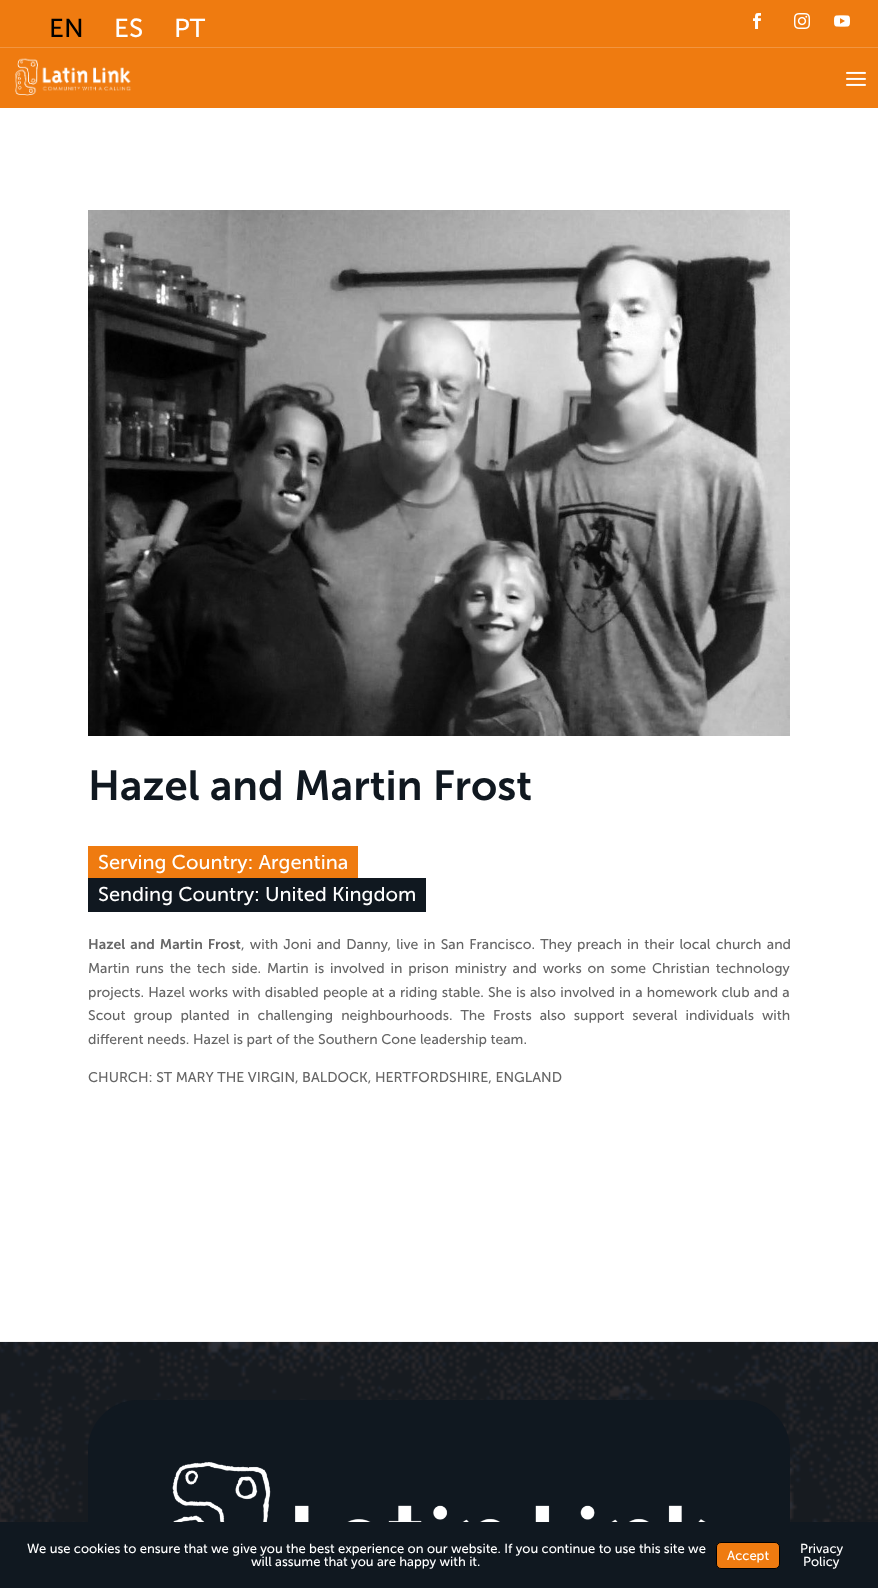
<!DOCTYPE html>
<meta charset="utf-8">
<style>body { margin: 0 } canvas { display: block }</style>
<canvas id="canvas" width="878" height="1588"></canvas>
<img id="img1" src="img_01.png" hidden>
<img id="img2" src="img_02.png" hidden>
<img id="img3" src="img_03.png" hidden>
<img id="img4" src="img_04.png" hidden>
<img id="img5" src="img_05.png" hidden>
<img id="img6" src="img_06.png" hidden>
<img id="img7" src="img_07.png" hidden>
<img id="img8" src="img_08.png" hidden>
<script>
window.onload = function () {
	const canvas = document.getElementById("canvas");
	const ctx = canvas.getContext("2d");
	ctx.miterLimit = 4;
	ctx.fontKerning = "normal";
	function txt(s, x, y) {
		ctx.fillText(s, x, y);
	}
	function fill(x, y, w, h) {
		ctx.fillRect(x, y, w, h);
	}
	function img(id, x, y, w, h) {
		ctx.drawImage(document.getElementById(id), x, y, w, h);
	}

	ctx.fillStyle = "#FFFFFF";
	fill(0, 0, 878, 1588);
	ctx.fillStyle = "#EF7B10";
	fill(0, 0, 878, 47);
	ctx.fillStyle = "#F29540";
	fill(0, 47, 878, 1);
	img("img1", 753, 13, 8, 16);
	img("img2", 794, 13, 16, 16);
	img("img3", 834, 15, 16, 12);
	ctx.fillStyle = "#EF7B10";
	fill(0, 48, 878, 60);
	img("img4", 15, 58, 116, 38);
	img("img5", 846, 71, 20, 15);
	img("img6", 88, 210, 702, 526);
	fill(88, 846, 270, 32);
	ctx.fillStyle = "#101820";
	fill(88, 878, 338, 34);
	img("img7", 0, 1341, 878, 181);
	ctx.beginPath();
	ctx.moveTo(138, 1400);
	ctx.lineTo(740, 1400);
	ctx.bezierCurveTo(767.5, 1400, 790, 1422.5, 790, 1450);
	ctx.lineTo(790, 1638);
	ctx.lineTo(88, 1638);
	ctx.lineTo(88, 1450);
	ctx.bezierCurveTo(88, 1422.5, 110.5, 1400, 138, 1400);
	ctx.closePath();
	ctx.fill();
	img("img8", 172, 1462, 534, 60);
	fill(0, 1522, 878, 66);
	ctx.fillStyle = "#EF7B10";
	ctx.beginPath();
	ctx.roundRect(716.5, 1542.5, 63, 26, 4.5);
	ctx.fill();
	ctx.strokeStyle = "#000000";
	ctx.stroke();
	ctx.font = "26px 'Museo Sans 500'";
	ctx.fillStyle = "#000000";
	txt("EN", 49, 37);
	ctx.fillStyle = "#FFFFFF";
	txt("ES", 114, 37);
	txt("PT", 174, 37);
	ctx.font = "600 42px 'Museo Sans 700'";
	ctx.fillStyle = "#101820";
	txt("Hazel and Martin Frost", 88, 800);
	ctx.font = "20px 'Museo Sans 500'";
	ctx.fillStyle = "#FFFFFF";
	txt("Serving Country: Argentina", 98, 869);
	txt("Sending Country: United Kingdom", 98, 901);
	ctx.wordSpacing = "1.6px";
	ctx.font = "600 14px 'Museo Sans 700'";
	ctx.fillStyle = "#666666";
	txt("Hazel and Martin Frost", 88, 949);
	ctx.font = "14px 'Museo Sans 500'";
	txt(", with Joni and Danny, live in San Francisco. They preach in their local church and", 241, 949);
	ctx.wordSpacing = "2.25px";
	txt("Martin runs the tech side. Martin is involved in prison ministry and works on some Christian technology", 88, 973);
	ctx.wordSpacing = "0.6px";
	txt("projects. Hazel works with disabled people at a riding stable. She is also involved in a homework club and a", 88, 997);
	ctx.wordSpacing = "4.4px";
	txt("Scout group planted in challenging neighbourhoods. The Frosts also support several individuals with", 88, 1020);
	ctx.wordSpacing = "0px";
	txt("different needs. Hazel is part of the Southern Cone leadership team.", 88, 1044);
	txt("CHURCH: ST MARY THE VIRGIN, BALDOCK, HERTFORDSHIRE, ENGLAND", 88, 1082);
	ctx.font = "13px 'Museo Sans 500'";
	ctx.fillStyle = "#FFFFFF";
	txt("We use cookies to ensure that we give you the best experience on our website. If you continue to use this site we", 27, 1553);
	txt("will assume that you are happy with it.", 251, 1566);
	txt("Accept", 727, 1560);
	txt("Privacy", 800, 1553);
	txt("Policy", 803, 1566);
};
</script>
